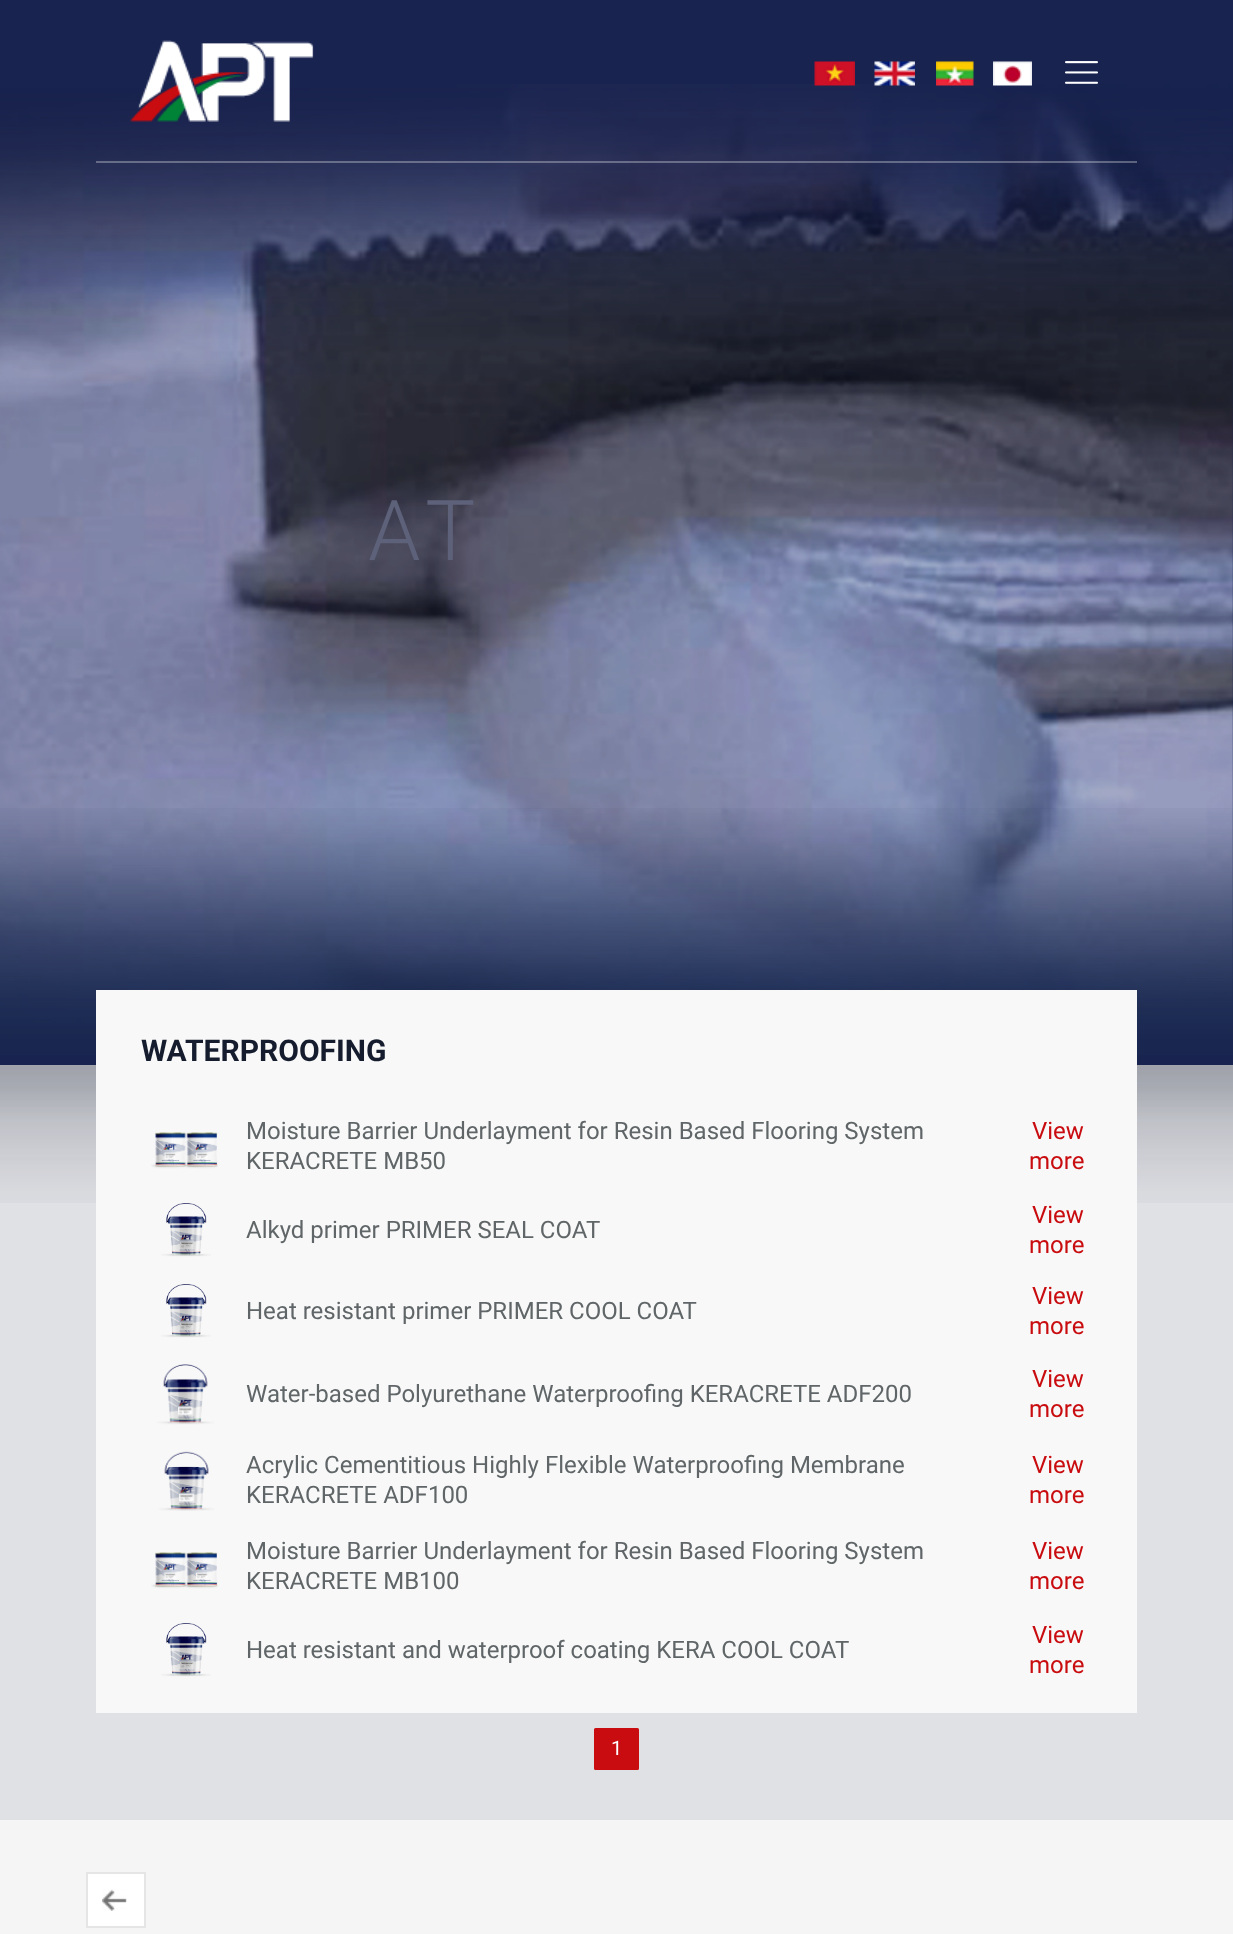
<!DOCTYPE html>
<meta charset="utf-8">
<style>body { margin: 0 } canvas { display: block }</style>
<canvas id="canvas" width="1233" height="1934"></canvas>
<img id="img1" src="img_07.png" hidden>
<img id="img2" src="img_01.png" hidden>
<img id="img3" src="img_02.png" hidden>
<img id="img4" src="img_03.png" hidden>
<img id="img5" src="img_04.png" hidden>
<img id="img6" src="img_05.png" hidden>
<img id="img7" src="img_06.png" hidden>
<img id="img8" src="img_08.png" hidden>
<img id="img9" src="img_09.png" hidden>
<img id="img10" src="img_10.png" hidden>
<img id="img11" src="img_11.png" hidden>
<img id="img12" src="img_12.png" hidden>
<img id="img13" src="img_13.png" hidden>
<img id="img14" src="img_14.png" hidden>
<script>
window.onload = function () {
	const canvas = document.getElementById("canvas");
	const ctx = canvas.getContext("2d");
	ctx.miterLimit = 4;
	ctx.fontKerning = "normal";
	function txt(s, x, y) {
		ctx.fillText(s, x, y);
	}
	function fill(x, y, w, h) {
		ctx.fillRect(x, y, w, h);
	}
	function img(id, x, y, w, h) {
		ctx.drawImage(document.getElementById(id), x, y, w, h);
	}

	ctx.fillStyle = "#E0E1E5";
	fill(0, 0, 1233, 1934);
	ctx.fillStyle = "#182350";
	fill(0, 0, 1233, 1065);
	img("img1", 0, 84, 1233, 955);
	ctx.fillStyle = "rgba(255, 255, 255, 0.3)";
	fill(96, 161, 1041, 2);
	img("img2", 130, 40, 184, 82);
	img("img3", 814, 61, 41, 25);
	img("img4", 874, 61, 41, 25);
	img("img5", 936, 61, 38, 25);
	img("img6", 993, 61, 39, 25);
	img("img7", 1065, 61, 33, 23);
	img("img8", 0, 808, 1233, 247);
	img("img9", 0, 1065, 1233, 138);
	ctx.fillStyle = "#F8F8F8";
	fill(96, 990, 1041, 723);
	img("img10", 151, 1132, 67, 37);
	img("img11", 161, 1203, 50, 54);
	img("img11", 161, 1284, 50, 54);
	img("img12", 157, 1364, 57, 61);
	img("img13", 159, 1451, 55, 60);
	img("img10", 151, 1552, 67, 37);
	img("img11", 161, 1623, 50, 54);
	ctx.fillStyle = "#C90C0F";
	ctx.beginPath();
	ctx.roundRect(595, 1729, 43, 40, 0.5);
	ctx.fill();
	ctx.strokeStyle = "#C90C0F";
	ctx.lineWidth = 2;
	ctx.stroke();
	ctx.fillStyle = "#F5F5F5";
	fill(0, 1820, 1233, 114);
	ctx.fillStyle = "#FFFFFF";
	ctx.beginPath();
	ctx.rect(87, 1873, 58, 54);
	ctx.fill();
	ctx.strokeStyle = "#E5E5E5";
	ctx.stroke();
	img("img14", 102, 1889, 25, 22);
	ctx.letterSpacing = "10px";
	ctx.font = "300 84px Roboto";
	ctx.fillStyle = "#5D6179";
	txt("AT", 368, 560);
	ctx.letterSpacing = "0px";
	ctx.font = "bold 30px Roboto";
	ctx.fillStyle = "#141C2E";
	txt("WATERPROOFING", 141, 1061);
	ctx.font = "24px Roboto";
	ctx.fillStyle = "#606668";
	txt("Moisture Barrier Underlayment for Resin Based Flooring System", 246, 1139);
	txt("KERACRETE MB50", 246, 1169);
	ctx.fillStyle = "#C90C0F";
	txt("View", 1032, 1139);
	txt("more", 1029, 1169);
	ctx.fillStyle = "#606668";
	txt("Alkyd primer PRIMER SEAL COAT", 246, 1238);
	ctx.fillStyle = "#C90C0F";
	txt("View", 1032, 1223);
	txt("more", 1029, 1253);
	ctx.fillStyle = "#606668";
	txt("Heat resistant primer PRIMER COOL COAT", 246, 1319);
	ctx.fillStyle = "#C90C0F";
	txt("View", 1032, 1304);
	txt("more", 1029, 1334);
	ctx.fillStyle = "#606668";
	txt("Water-based Polyurethane Waterproofing KERACRETE ADF200", 246, 1402);
	ctx.fillStyle = "#C90C0F";
	txt("View", 1032, 1387);
	txt("more", 1029, 1417);
	ctx.fillStyle = "#606668";
	txt("Acrylic Cementitious Highly Flexible Waterproofing Membrane", 246, 1473);
	txt("KERACRETE ADF100", 246, 1503);
	ctx.fillStyle = "#C90C0F";
	txt("View", 1032, 1473);
	txt("more", 1029, 1503);
	ctx.fillStyle = "#606668";
	txt("Moisture Barrier Underlayment for Resin Based Flooring System", 246, 1559);
	txt("KERACRETE MB100", 246, 1589);
	ctx.fillStyle = "#C90C0F";
	txt("View", 1032, 1559);
	txt("more", 1029, 1589);
	ctx.fillStyle = "#606668";
	txt("Heat resistant and waterproof coating KERA COOL COAT", 246, 1658);
	ctx.fillStyle = "#C90C0F";
	txt("View", 1032, 1643);
	txt("more", 1029, 1673);
	ctx.font = "20px Roboto";
	ctx.fillStyle = "#FFFFFF";
	txt("1", 611, 1755);
};
</script>
